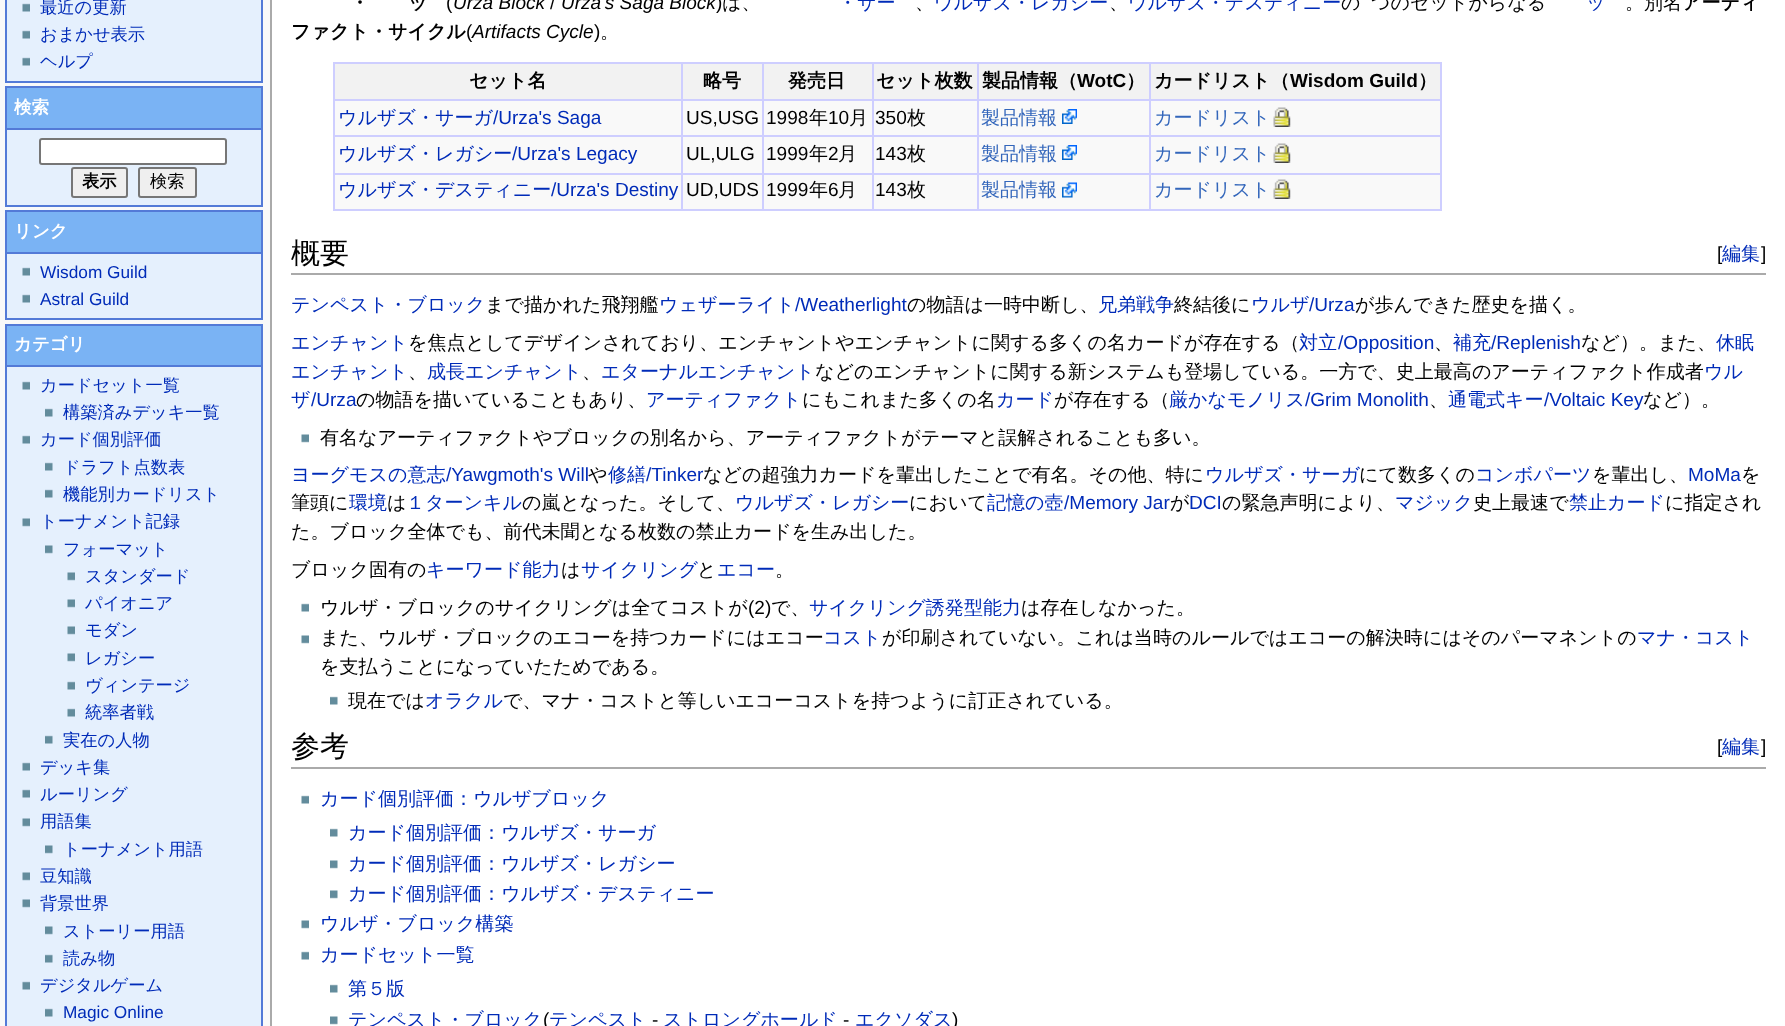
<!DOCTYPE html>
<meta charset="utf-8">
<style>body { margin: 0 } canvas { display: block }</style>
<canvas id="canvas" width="1785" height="1026"></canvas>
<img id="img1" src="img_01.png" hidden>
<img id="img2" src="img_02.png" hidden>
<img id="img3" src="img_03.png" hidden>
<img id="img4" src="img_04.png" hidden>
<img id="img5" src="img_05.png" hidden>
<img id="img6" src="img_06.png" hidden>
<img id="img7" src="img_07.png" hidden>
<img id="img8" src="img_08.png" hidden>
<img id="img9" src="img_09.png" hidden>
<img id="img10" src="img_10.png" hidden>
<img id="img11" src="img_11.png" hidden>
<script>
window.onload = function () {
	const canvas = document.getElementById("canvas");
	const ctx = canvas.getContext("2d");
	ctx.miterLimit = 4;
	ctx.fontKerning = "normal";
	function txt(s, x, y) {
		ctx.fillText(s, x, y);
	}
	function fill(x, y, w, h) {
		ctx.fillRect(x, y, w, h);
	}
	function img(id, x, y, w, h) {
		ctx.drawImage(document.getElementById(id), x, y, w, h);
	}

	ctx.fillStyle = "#F9F9F9";
	fill(0, 0, 1785, 1026);
	ctx.fillStyle = "#E5F0FD";
	ctx.beginPath();
	ctx.rect(6, -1, 256, 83);
	ctx.fill();
	ctx.strokeStyle = "#537AD7";
	ctx.lineWidth = 2;
	ctx.stroke();
	img("img1", 22, 3, 8, 9);
	img("img1", 22, 30, 8, 9);
	img("img1", 22, 57, 8, 9);
	ctx.fillStyle = "#7AB3F4";
	fill(7, 88, 254, 40);
	ctx.fillStyle = "#537AD7";
	fill(5, 86, 258, 2);
	fill(261, 86, 2, 42);
	fill(5, 86, 2, 42);
	ctx.fillStyle = "#E5F0FD";
	ctx.beginPath();
	ctx.rect(6, 129, 256, 77);
	ctx.fill();
	ctx.stroke();
	ctx.fillStyle = "#FFFFFF";
	ctx.beginPath();
	ctx.roundRect(40, 139, 186, 25, 2);
	ctx.fill();
	ctx.strokeStyle = "#767676";
	ctx.stroke();
	ctx.fillStyle = "#EFEFEF";
	ctx.beginPath();
	ctx.roundRect(72, 168, 55, 29, 2);
	ctx.fill();
	ctx.stroke();
	ctx.beginPath();
	ctx.roundRect(139, 168, 57, 29, 2);
	ctx.fill();
	ctx.stroke();
	ctx.fillStyle = "#7AB3F4";
	fill(7, 212, 254, 40);
	ctx.fillStyle = "#537AD7";
	fill(5, 210, 258, 2);
	fill(261, 210, 2, 42);
	fill(5, 210, 2, 42);
	ctx.fillStyle = "#E5F0FD";
	ctx.beginPath();
	ctx.rect(6, 253, 256, 66);
	ctx.fill();
	ctx.strokeStyle = "#537AD7";
	ctx.stroke();
	img("img1", 22, 267, 8, 9);
	img("img1", 22, 294, 8, 9);
	ctx.fillStyle = "#7AB3F4";
	fill(7, 326, 254, 39);
	ctx.fillStyle = "#537AD7";
	fill(5, 324, 258, 2);
	fill(261, 324, 2, 41);
	fill(5, 324, 2, 41);
	ctx.fillStyle = "#E5F0FD";
	ctx.beginPath();
	ctx.rect(6, 366, 256, 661);
	ctx.fill();
	ctx.stroke();
	img("img1", 22, 381, 8, 9);
	img("img2", 45, 408, 8, 9);
	img("img1", 22, 435, 8, 9);
	img("img2", 45, 462, 8, 9);
	img("img2", 45, 489, 8, 9);
	img("img3", 22, 518, 8, 9);
	img("img4", 45, 545, 8, 9);
	img("img3", 67, 572, 8, 9);
	img("img3", 67, 599, 8, 9);
	img("img3", 67, 626, 8, 9);
	img("img3", 67, 653, 8, 9);
	img("img1", 67, 681, 8, 9);
	img("img1", 67, 708, 8, 9);
	img("img2", 45, 735, 8, 9);
	img("img1", 22, 762, 8, 9);
	img("img1", 22, 789, 8, 9);
	img("img3", 22, 818, 8, 9);
	img("img4", 45, 845, 8, 9);
	img("img3", 22, 872, 8, 9);
	img("img3", 22, 899, 8, 9);
	img("img4", 45, 926, 8, 9);
	img("img2", 45, 954, 8, 9);
	img("img1", 22, 981, 8, 9);
	img("img2", 45, 1008, 8, 9);
	ctx.fillStyle = "#FFFFFF";
	fill(272, 0, 1513, 1026);
	ctx.fillStyle = "#AAAAAA";
	fill(270, 0, 2, 1026);
	ctx.fillStyle = "#F9F9F9";
	fill(335, 101, 1105, 108);
	ctx.fillStyle = "#F2F2F2";
	fill(335, 64, 346, 35);
	ctx.fillStyle = "#CECEFF";
	fill(1149, 62, 293, 2);
	fill(1149, 99, 293, 2);
	fill(1149, 135, 293, 2);
	fill(1149, 173, 293, 2);
	fill(1440, 173, 2, 37);
	fill(1149, 209, 293, 2);
	fill(1149, 173, 2, 37);
	fill(977, 173, 174, 2);
	fill(1149, 135, 2, 39);
	fill(977, 135, 174, 2);
	fill(1149, 99, 2, 38);
	fill(977, 99, 174, 2);
	fill(1149, 62, 2, 39);
	fill(977, 62, 174, 2);
	fill(977, 209, 174, 2);
	fill(977, 173, 2, 37);
	fill(872, 173, 106, 2);
	fill(977, 135, 2, 39);
	fill(872, 135, 106, 2);
	fill(977, 99, 2, 38);
	fill(872, 99, 106, 2);
	fill(977, 62, 2, 39);
	fill(872, 62, 106, 2);
	fill(872, 209, 106, 2);
	fill(872, 173, 2, 37);
	fill(762, 173, 111, 2);
	fill(872, 135, 2, 39);
	fill(762, 135, 111, 2);
	fill(872, 99, 2, 38);
	fill(762, 99, 111, 2);
	fill(872, 62, 2, 39);
	fill(762, 62, 111, 2);
	fill(762, 209, 111, 2);
	fill(762, 173, 2, 37);
	fill(681, 173, 83, 2);
	fill(762, 135, 2, 39);
	fill(681, 135, 83, 2);
	fill(762, 99, 2, 38);
	fill(681, 99, 83, 2);
	fill(762, 62, 2, 39);
	fill(681, 62, 83, 2);
	fill(681, 209, 83, 2);
	fill(681, 173, 2, 37);
	fill(333, 173, 350, 2);
	fill(681, 135, 2, 39);
	fill(333, 135, 350, 2);
	fill(681, 99, 2, 38);
	fill(333, 99, 350, 2);
	fill(681, 62, 2, 39);
	fill(333, 62, 350, 2);
	fill(333, 209, 350, 2);
	fill(333, 173, 2, 37);
	fill(333, 135, 2, 39);
	fill(333, 99, 2, 38);
	fill(333, 62, 2, 39);
	ctx.fillStyle = "#F2F2F2";
	fill(683, 64, 79, 35);
	fill(764, 64, 108, 35);
	fill(874, 64, 103, 35);
	fill(979, 64, 170, 35);
	fill(1151, 64, 289, 35);
	ctx.fillStyle = "#CECEFF";
	fill(1440, 135, 2, 39);
	fill(1440, 99, 2, 38);
	fill(1440, 62, 2, 39);
	img("img5", 1062, 109, 15, 15);
	img("img6", 1273, 107, 18, 20);
	img("img5", 1062, 145, 15, 15);
	img("img6", 1273, 143, 18, 20);
	img("img7", 1062, 182, 15, 16);
	img("img6", 1273, 179, 18, 20);
	ctx.fillStyle = "#AAAAAA";
	fill(291, 273, 1475, 2);
	img("img8", 301, 434, 8, 9);
	img("img9", 301, 603, 8, 9);
	img("img8", 301, 635, 8, 9);
	img("img10", 330, 696, 8, 9);
	fill(291, 767, 1475, 2);
	img("img9", 301, 795, 8, 9);
	img("img10", 330, 828, 8, 9);
	img("img11", 330, 860, 8, 9);
	img("img11", 330, 890, 8, 9);
	img("img8", 301, 920, 8, 9);
	img("img9", 301, 951, 8, 9);
	img("img10", 330, 984, 8, 9);
	img("img11", 330, 1016, 8, 9);
	ctx.font = "500 17.25px WenQuanYi Zen Hei";
	ctx.fillStyle = "#002BB8";
	txt("最近の更新", 40, 13);
	txt("おまかせ表示", 40, 40);
	txt("ヘルプ", 40, 67);
	ctx.font = "bold 17.5px WenQuanYi Zen Hei";
	ctx.fillStyle = "#FFFFFF";
	txt("検索", 14, 113);
	ctx.font = "bold 17.25px WenQuanYi Zen Hei";
	ctx.fillStyle = "#000000";
	txt("表示", 82, 187);
	ctx.font = "500 17.25px WenQuanYi Zen Hei";
	txt("検索", 150, 187);
	ctx.font = "bold 17.5px WenQuanYi Zen Hei";
	ctx.fillStyle = "#FFFFFF";
	txt("リンク", 14, 237);
	ctx.font = "17.25px Liberation Sans";
	ctx.fillStyle = "#002BB8";
	txt("Wisdom Guild", 40, 278);
	txt("Astral Guild", 40, 305);
	ctx.font = "bold 17.5px WenQuanYi Zen Hei";
	ctx.fillStyle = "#FFFFFF";
	txt("カテゴリ", 14, 350);
	ctx.font = "500 17.25px WenQuanYi Zen Hei";
	ctx.fillStyle = "#002BB8";
	txt("カードセット一覧", 40, 391);
	txt("構築済みデッキ一覧", 63, 418);
	txt("カード個別評価", 40, 445);
	txt("ドラフト点数表", 63, 473);
	txt("機能別カードリスト", 63, 500);
	txt("トーナメント記録", 40, 527);
	txt("フォーマット", 63, 555);
	txt("スタンダード", 85, 582);
	txt("パイオニア", 85, 609);
	txt("モダン", 85, 636);
	txt("レガシー", 85, 664);
	txt("ヴィンテージ", 85, 691);
	txt("統率者戦", 85, 718);
	txt("実在の人物", 63, 746);
	txt("デッキ集", 40, 773);
	txt("ルーリング", 40, 800);
	txt("用語集", 40, 827);
	txt("トーナメント用語", 63, 855);
	txt("豆知識", 40, 882);
	txt("背景世界", 40, 909);
	txt("ストーリー用語", 63, 937);
	txt("読み物", 63, 964);
	txt("デジタルゲーム", 40, 991);
	ctx.font = "17.25px Liberation Sans";
	txt("Magic Online", 63, 1018);
	ctx.font = "bold 19.05px WenQuanYi Zen Hei";
	ctx.fillStyle = "#000000";
	txt("・", 350, 9);
	txt("ッ", 408, 9);
	ctx.font = "19.05px Liberation Sans";
	txt("(", 446, 9);
	ctx.font = "italic 19.05px Liberation Sans";
	txt("Urza Block", 453, 9);
	ctx.font = "19.05px Liberation Sans";
	txt("/", 550, 9);
	ctx.font = "italic 19.05px Liberation Sans";
	txt("Urza's Saga Block", 561, 9);
	ctx.font = "19.05px Liberation Sans";
	txt(")", 716, 9);
	ctx.font = "500 19.05px WenQuanYi Zen Hei";
	txt("は、", 722, 9);
	ctx.fillStyle = "#002BB8";
	txt("・サー", 838, 9);
	ctx.fillStyle = "#000000";
	txt("、", 915, 9);
	ctx.fillStyle = "#002BB8";
	txt("ウルザズ・レガシー", 934, 9);
	ctx.fillStyle = "#000000";
	txt("、", 1109, 9);
	ctx.fillStyle = "#002BB8";
	txt("ウルザズ・デスティニー", 1128, 9);
	ctx.fillStyle = "#000000";
	txt("の", 1341, 9);
	txt("つのセットからなる", 1371, 9);
	ctx.fillStyle = "#002BB8";
	txt("ッ", 1586, 9);
	ctx.fillStyle = "#000000";
	txt("。別名", 1625, 9);
	ctx.font = "bold 19.05px WenQuanYi Zen Hei";
	txt("アーティ", 1682, 9);
	txt("ファクト・サイクル", 291, 38);
	ctx.font = "19.05px Liberation Sans";
	txt("(", 466, 38);
	ctx.font = "italic 19.05px Liberation Sans";
	txt("Artifacts Cycle", 472, 38);
	ctx.font = "19.05px Liberation Sans";
	txt(")", 594, 38);
	ctx.font = "500 19.05px WenQuanYi Zen Hei";
	txt("。", 600, 38);
	ctx.font = "bold 19.05px WenQuanYi Zen Hei";
	txt("セット名", 469, 87);
	txt("略号", 703, 87);
	txt("発売日", 788, 87);
	txt("セット枚数", 876, 87);
	txt("製品情報（", 982, 87);
	ctx.font = "bold 19.05px Liberation Sans";
	txt("WotC", 1077, 87);
	ctx.font = "bold 19.05px WenQuanYi Zen Hei";
	txt("）", 1126, 87);
	txt("カードリスト（", 1154, 87);
	ctx.font = "bold 19.05px Liberation Sans";
	txt("Wisdom Guild", 1290, 87);
	ctx.font = "bold 19.05px WenQuanYi Zen Hei";
	txt("）", 1418, 87);
	ctx.font = "500 19.05px WenQuanYi Zen Hei";
	ctx.fillStyle = "#002BB8";
	txt("ウルザズ・サーガ", 338, 124);
	ctx.font = "19.05px Liberation Sans";
	txt("/Urza's Saga", 493, 124);
	ctx.fillStyle = "#000000";
	txt("US,USG", 686, 124);
	txt("1998", 766, 124);
	ctx.font = "500 19.05px WenQuanYi Zen Hei";
	txt("年", 809, 124);
	ctx.font = "19.05px Liberation Sans";
	txt("10", 828, 124);
	ctx.font = "500 19.05px WenQuanYi Zen Hei";
	txt("月", 849, 124);
	ctx.font = "19.05px Liberation Sans";
	txt("350", 875, 124);
	ctx.font = "500 19.05px WenQuanYi Zen Hei";
	txt("枚", 907, 124);
	ctx.fillStyle = "#3366BB";
	txt("製品情報", 981, 124);
	txt("カードリスト", 1154, 124);
	ctx.fillStyle = "#002BB8";
	txt("ウルザズ・レガシー", 338, 160);
	ctx.font = "19.05px Liberation Sans";
	txt("/Urza's Legacy", 512, 160);
	ctx.fillStyle = "#000000";
	txt("UL,ULG", 686, 160);
	txt("1999", 766, 160);
	ctx.font = "500 19.05px WenQuanYi Zen Hei";
	txt("年", 809, 160);
	ctx.font = "19.05px Liberation Sans";
	txt("2", 828, 160);
	ctx.font = "500 19.05px WenQuanYi Zen Hei";
	txt("月", 838, 160);
	ctx.font = "19.05px Liberation Sans";
	txt("143", 875, 160);
	ctx.font = "500 19.05px WenQuanYi Zen Hei";
	txt("枚", 907, 160);
	ctx.fillStyle = "#3366BB";
	txt("製品情報", 981, 160);
	txt("カードリスト", 1154, 160);
	ctx.fillStyle = "#002BB8";
	txt("ウルザズ・デスティニー", 338, 196);
	ctx.font = "19.05px Liberation Sans";
	txt("/Urza's Destiny", 551, 196);
	ctx.fillStyle = "#000000";
	txt("UD,UDS", 686, 196);
	txt("1999", 766, 196);
	ctx.font = "500 19.05px WenQuanYi Zen Hei";
	txt("年", 809, 196);
	ctx.font = "19.05px Liberation Sans";
	txt("6", 828, 196);
	ctx.font = "500 19.05px WenQuanYi Zen Hei";
	txt("月", 838, 196);
	ctx.font = "19.05px Liberation Sans";
	txt("143", 875, 196);
	ctx.font = "500 19.05px WenQuanYi Zen Hei";
	txt("枚", 907, 196);
	ctx.fillStyle = "#3366BB";
	txt("製品情報", 981, 196);
	txt("カードリスト", 1154, 196);
	ctx.font = "500 29px WenQuanYi Zen Hei";
	ctx.fillStyle = "#000000";
	txt("概要", 291, 263);
	ctx.font = "19px Liberation Sans";
	txt("[", 1717, 260);
	ctx.font = "500 19px WenQuanYi Zen Hei";
	ctx.fillStyle = "#002BB8";
	txt("編集", 1722, 260);
	ctx.font = "19px Liberation Sans";
	ctx.fillStyle = "#000000";
	txt("]", 1761, 260);
	ctx.font = "500 19.05px WenQuanYi Zen Hei";
	ctx.fillStyle = "#002BB8";
	txt("テンペスト・ブロック", 291, 311);
	ctx.fillStyle = "#000000";
	txt("まで描かれた飛翔艦", 485, 311);
	ctx.fillStyle = "#002BB8";
	txt("ウェザーライト", 659, 311);
	ctx.font = "19.05px Liberation Sans";
	txt("/Weatherlight", 795, 311);
	ctx.font = "500 19.05px WenQuanYi Zen Hei";
	ctx.fillStyle = "#000000";
	txt("の物語は一時中断し、", 907, 311);
	ctx.fillStyle = "#002BB8";
	txt("兄弟戦争", 1098, 311);
	ctx.fillStyle = "#000000";
	txt("終結後に", 1174, 311);
	ctx.fillStyle = "#002BB8";
	txt("ウルザ", 1251, 311);
	ctx.font = "19.05px Liberation Sans";
	txt("/Urza", 1309, 311);
	ctx.font = "500 19.05px WenQuanYi Zen Hei";
	ctx.fillStyle = "#000000";
	txt("が歩んできた歴史を描く。", 1355, 311);
	ctx.fillStyle = "#002BB8";
	txt("エンチャント", 291, 349);
	ctx.fillStyle = "#000000";
	txt("を焦点としてデザインされており、エンチャントやエンチャントに関する多くの名カードが存在する（", 408, 349);
	ctx.fillStyle = "#002BB8";
	txt("対立", 1299, 349);
	ctx.font = "19.05px Liberation Sans";
	txt("/Opposition", 1338, 349);
	ctx.font = "500 19.05px WenQuanYi Zen Hei";
	ctx.fillStyle = "#000000";
	txt("、", 1434, 349);
	ctx.fillStyle = "#002BB8";
	txt("補充", 1453, 349);
	ctx.font = "19.05px Liberation Sans";
	txt("/Replenish", 1491, 349);
	ctx.font = "500 19.05px WenQuanYi Zen Hei";
	ctx.fillStyle = "#000000";
	txt("など）。また、", 1581, 349);
	ctx.fillStyle = "#002BB8";
	txt("休眠", 1716, 349);
	txt("エンチャント", 291, 378);
	ctx.fillStyle = "#000000";
	txt("、", 408, 378);
	ctx.fillStyle = "#002BB8";
	txt("成長エンチャント", 427, 378);
	ctx.fillStyle = "#000000";
	txt("、", 582, 378);
	ctx.fillStyle = "#002BB8";
	txt("エターナルエンチャント", 601, 378);
	ctx.fillStyle = "#000000";
	txt("などのエンチャントに関する新システムも登場している。一方で、史上最高のアーティファクト作成者", 815, 378);
	ctx.fillStyle = "#002BB8";
	txt("ウル", 1704, 378);
	txt("ザ", 291, 406);
	ctx.font = "19.05px Liberation Sans";
	txt("/Urza", 311, 406);
	ctx.font = "500 19.05px WenQuanYi Zen Hei";
	ctx.fillStyle = "#000000";
	txt("の物語を描いていることもあり、", 356, 406);
	ctx.fillStyle = "#002BB8";
	txt("アーティファクト", 646, 406);
	ctx.fillStyle = "#000000";
	txt("にもこれまた多くの名", 802, 406);
	ctx.fillStyle = "#002BB8";
	txt("カード", 996, 406);
	ctx.fillStyle = "#000000";
	txt("が存在する（", 1054, 406);
	ctx.fillStyle = "#002BB8";
	txt("厳かなモノリス", 1169, 406);
	ctx.font = "19.05px Liberation Sans";
	txt("/Grim Monolith", 1305, 406);
	ctx.font = "500 19.05px WenQuanYi Zen Hei";
	ctx.fillStyle = "#000000";
	txt("、", 1429, 406);
	ctx.fillStyle = "#002BB8";
	txt("通電式キー", 1448, 406);
	ctx.font = "19.05px Liberation Sans";
	txt("/Voltaic Key", 1544, 406);
	ctx.font = "500 19.05px WenQuanYi Zen Hei";
	ctx.fillStyle = "#000000";
	txt("など）。", 1643, 406);
	txt("有名なアーティファクトやブロックの別名から、アーティファクトがテーマと誤解されることも多い。", 320, 444);
	ctx.fillStyle = "#002BB8";
	txt("ヨーグモスの意志", 291, 481);
	ctx.font = "19.05px Liberation Sans";
	txt("/Yawgmoth's Will", 446, 481);
	ctx.font = "500 19.05px WenQuanYi Zen Hei";
	ctx.fillStyle = "#000000";
	txt("や", 588, 481);
	ctx.fillStyle = "#002BB8";
	txt("修繕", 608, 481);
	ctx.font = "19.05px Liberation Sans";
	txt("/Tinker", 646, 481);
	ctx.font = "500 19.05px WenQuanYi Zen Hei";
	ctx.fillStyle = "#000000";
	txt("などの超強力カードを輩出したことで有名。その他、特に", 703, 481);
	ctx.fillStyle = "#002BB8";
	txt("ウルザズ・サーガ", 1205, 481);
	ctx.fillStyle = "#000000";
	txt("にて数多くの", 1359, 481);
	ctx.fillStyle = "#002BB8";
	txt("コンボパーツ", 1475, 481);
	ctx.fillStyle = "#000000";
	txt("を輩出し、", 1592, 481);
	ctx.font = "19.05px Liberation Sans";
	ctx.fillStyle = "#002BB8";
	txt("MoMa", 1688, 481);
	ctx.font = "500 19.05px WenQuanYi Zen Hei";
	ctx.fillStyle = "#000000";
	txt("を", 1741, 481);
	txt("筆頭に", 291, 509);
	ctx.fillStyle = "#002BB8";
	txt("環境", 349, 509);
	ctx.fillStyle = "#000000";
	txt("は", 387, 509);
	ctx.fillStyle = "#002BB8";
	txt("１ターンキル", 406, 509);
	ctx.fillStyle = "#000000";
	txt("の嵐となった。そして、", 522, 509);
	ctx.fillStyle = "#002BB8";
	txt("ウルザズ・レガシー", 735, 509);
	ctx.fillStyle = "#000000";
	txt("において", 909, 509);
	ctx.fillStyle = "#002BB8";
	txt("記憶の壺", 987, 509);
	ctx.font = "19.05px Liberation Sans";
	txt("/Memory Jar", 1064, 509);
	ctx.font = "500 19.05px WenQuanYi Zen Hei";
	ctx.fillStyle = "#000000";
	txt("が", 1170, 509);
	ctx.font = "19.05px Liberation Sans";
	ctx.fillStyle = "#002BB8";
	txt("DCI", 1189, 509);
	ctx.font = "500 19.05px WenQuanYi Zen Hei";
	ctx.fillStyle = "#000000";
	txt("の緊急声明により、", 1222, 509);
	ctx.fillStyle = "#002BB8";
	txt("マジック", 1395, 509);
	ctx.fillStyle = "#000000";
	txt("史上最速で", 1473, 509);
	ctx.fillStyle = "#002BB8";
	txt("禁止カード", 1569, 509);
	ctx.fillStyle = "#000000";
	txt("に指定され", 1665, 509);
	txt("た。ブロック全体でも、前代未聞となる枚数の禁止カードを生み出した。", 291, 538);
	txt("ブロック固有の", 291, 576);
	ctx.fillStyle = "#002BB8";
	txt("キーワード能力", 426, 576);
	ctx.fillStyle = "#000000";
	txt("は", 561, 576);
	ctx.fillStyle = "#002BB8";
	txt("サイクリング", 581, 576);
	ctx.fillStyle = "#000000";
	txt("と", 697, 576);
	ctx.fillStyle = "#002BB8";
	txt("エコー", 717, 576);
	ctx.fillStyle = "#000000";
	txt("。", 775, 576);
	txt("ウルザ・ブロックのサイクリングは全てコストが", 320, 614);
	ctx.font = "19.05px Liberation Sans";
	txt("(2)", 748, 614);
	ctx.font = "500 19.05px WenQuanYi Zen Hei";
	txt("で、", 771, 614);
	ctx.fillStyle = "#002BB8";
	txt("サイクリング誘発型能力", 809, 614);
	ctx.fillStyle = "#000000";
	txt("は存在しなかった。", 1021, 614);
	txt("また、ウルザ・ブロックのエコーを持つカードにはエコー", 320, 644);
	ctx.fillStyle = "#002BB8";
	txt("コスト", 823, 644);
	ctx.fillStyle = "#000000";
	txt("が印刷されていない。これは当時のルールではエコーの解決時にはそのパーマネントの", 882, 644);
	ctx.fillStyle = "#002BB8";
	txt("マナ・コスト", 1637, 644);
	ctx.fillStyle = "#000000";
	txt("を支払うことになっていたためである。", 320, 673);
	txt("現在では", 348, 707);
	ctx.fillStyle = "#002BB8";
	txt("オラクル", 425, 707);
	ctx.fillStyle = "#000000";
	txt("で、マナ・コストと等しいエコーコストを持つように訂正されている。", 503, 707);
	ctx.font = "500 29px WenQuanYi Zen Hei";
	txt("参考", 291, 756);
	ctx.font = "19px Liberation Sans";
	txt("[", 1717, 753);
	ctx.font = "500 19px WenQuanYi Zen Hei";
	ctx.fillStyle = "#002BB8";
	txt("編集", 1722, 753);
	ctx.font = "19px Liberation Sans";
	ctx.fillStyle = "#000000";
	txt("]", 1761, 753);
	ctx.font = "500 19.05px WenQuanYi Zen Hei";
	ctx.fillStyle = "#002BB8";
	txt("カード個別評価：ウルザブロック", 320, 805);
	txt("カード個別評価：ウルザズ・サーガ", 348, 839);
	txt("カード個別評価：ウルザズ・レガシー", 348, 870);
	txt("カード個別評価：ウルザズ・デスティニー", 348, 900);
	txt("ウルザ・ブロック構築", 320, 930);
	txt("カードセット一覧", 320, 961);
	txt("第５版", 348, 995);
	txt("テンペスト・ブロック", 348, 1026);
	ctx.font = "19.05px Liberation Sans";
	ctx.fillStyle = "#000000";
	txt("(", 543, 1026);
	ctx.font = "500 19.05px WenQuanYi Zen Hei";
	ctx.fillStyle = "#002BB8";
	txt("テンペスト", 549, 1026);
	ctx.font = "19.05px Liberation Sans";
	ctx.fillStyle = "#000000";
	txt("-", 652, 1026);
	ctx.font = "500 19.05px WenQuanYi Zen Hei";
	ctx.fillStyle = "#002BB8";
	txt("ストロングホールド", 663, 1026);
	ctx.font = "19.05px Liberation Sans";
	ctx.fillStyle = "#000000";
	txt("-", 843, 1026);
	ctx.font = "500 19.05px WenQuanYi Zen Hei";
	ctx.fillStyle = "#002BB8";
	txt("エクソダス", 855, 1026);
	ctx.font = "19.05px Liberation Sans";
	ctx.fillStyle = "#000000";
	txt(")", 952, 1026);
};
</script>
